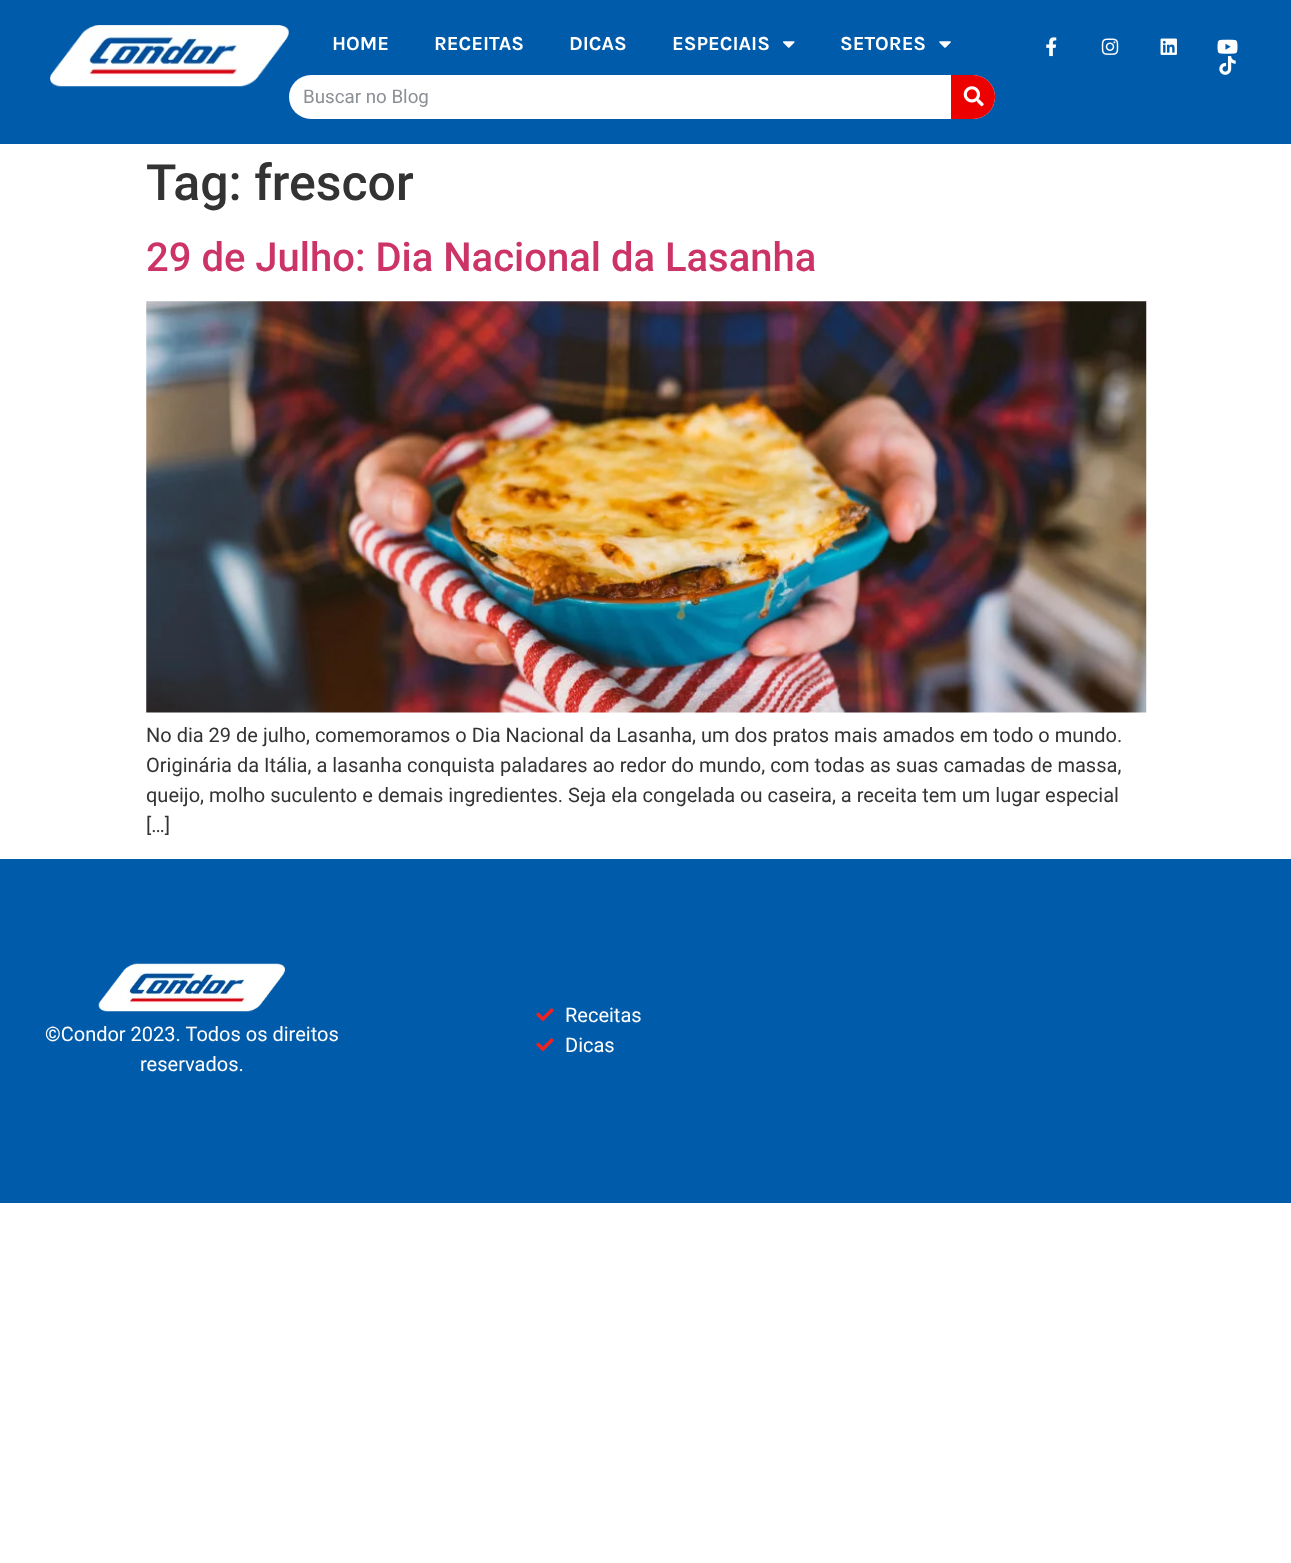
<!DOCTYPE html>
<meta charset="utf-8">
<style>body { margin: 0 } canvas { display: block }</style>
<canvas id="canvas" width="1291" height="1563"></canvas>
<img id="img1" src="img_01.png" hidden>
<img id="img2" src="img_02.png" hidden>
<img id="img3" src="img_03.png" hidden>
<img id="img4" src="img_04.png" hidden>
<img id="img5" src="img_05.png" hidden>
<img id="img6" src="img_06.png" hidden>
<img id="img7" src="img_07.png" hidden>
<img id="img8" src="img_08.png" hidden>
<img id="img9" src="img_09.png" hidden>
<img id="img10" src="img_10.png" hidden>
<img id="img11" src="img_11.png" hidden>
<img id="img12" src="img_12.png" hidden>
<script>
window.onload = function () {
	const canvas = document.getElementById("canvas");
	const ctx = canvas.getContext("2d");
	ctx.miterLimit = 4;
	ctx.fontKerning = "normal";
	function txt(s, x, y) {
		ctx.fillText(s, x, y);
	}
	function fill(x, y, w, h) {
		ctx.fillRect(x, y, w, h);
	}
	function round(x, y, w, h, r) {
		ctx.beginPath();
		ctx.roundRect(x, y, w, h, r);
		ctx.fill();
	}
	function img(id, x, y, w, h) {
		ctx.drawImage(document.getElementById(id), x, y, w, h);
	}

	ctx.fillStyle = "#FFFFFF";
	fill(0, 0, 1291, 1563);
	ctx.fillStyle = "#005BAA";
	fill(0, 0, 1291, 144);
	img("img1", 50, 25, 239, 62);
	img("img2", 783, 41, 12, 7);
	img("img3", 939, 41, 12, 7);
	ctx.fillStyle = "#FFFFFF";
	round(289, 75, 706, 44, 22);
	ctx.fillStyle = "#ED0000";
	ctx.beginPath();
	ctx.roundRect(951, 75, 44, 44, [0, 22, 22, 0]);
	ctx.fill();
	img("img4", 963, 86, 21, 21);
	img("img5", 1046, 37, 11, 20);
	img("img6", 1101, 38, 18, 17);
	img("img7", 1160, 38, 17, 17);
	img("img8", 1217, 39, 21, 15);
	img("img9", 1219, 56, 17, 19);
	img("img10", 146, 301, 1001, 412);
	ctx.fillStyle = "#005BAA";
	fill(0, 859, 1291, 344);
	img("img11", 98, 963, 187, 49);
	img("img12", 536, 1008, 18, 14);
	img("img12", 536, 1038, 18, 14);
	ctx.font = "bold 20px Karla";
	ctx.fillStyle = "#FFFFFF";
	txt("HOME", 332, 50);
	txt("RECEITAS", 434, 50);
	txt("DICAS", 569, 50);
	txt("ESPECIAIS", 672, 50);
	txt("SETORES", 840, 50);
	ctx.font = "18.75px Roboto";
	ctx.fillStyle = "#8C8F93";
	txt("Buscar no Blog", 303, 103);
	ctx.font = "500 50px Roboto";
	ctx.fillStyle = "#333333";
	txt("Tag: frescor", 146, 200);
	ctx.font = "500 40px Roboto";
	ctx.fillStyle = "#CC3366";
	txt("29 de Julho: Dia Nacional da Lasanha", 146, 271);
	ctx.font = "20px Roboto";
	ctx.fillStyle = "#333333";
	txt("No dia 29 de julho, comemoramos o Dia Nacional da Lasanha, um dos pratos mais amados em todo o mundo.", 146, 742);
	txt("Originária da Itália, a lasanha conquista paladares ao redor do mundo, com todas as suas camadas de massa,", 146, 772);
	txt("queijo, molho suculento e demais ingredientes. Seja ela congelada ou caseira, a receita tem um lugar especial", 146, 802);
	txt("[…]", 146, 832);
	ctx.fillStyle = "#FFFFFF";
	txt("©Condor 2023. Todos os direitos", 45, 1041);
	txt("reservados.", 140, 1071);
	txt("Receitas", 565, 1022);
	txt("Dicas", 565, 1052);
};
</script>
